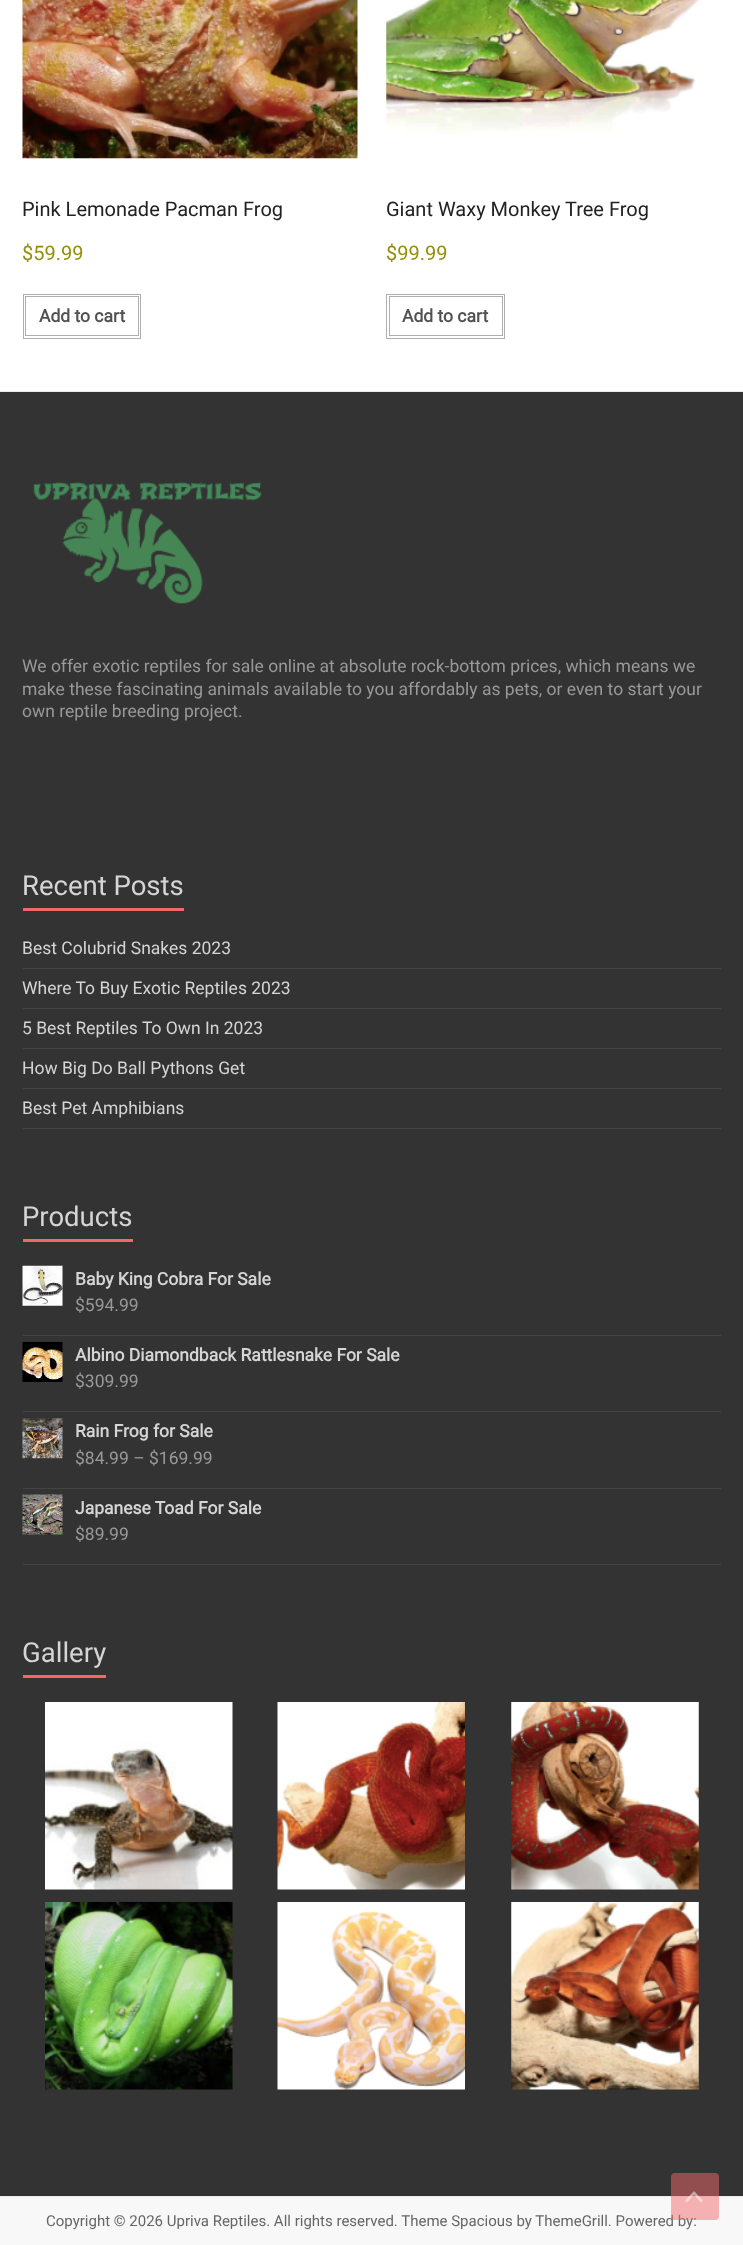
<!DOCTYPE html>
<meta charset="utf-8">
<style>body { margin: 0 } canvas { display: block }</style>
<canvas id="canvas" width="743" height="2245"></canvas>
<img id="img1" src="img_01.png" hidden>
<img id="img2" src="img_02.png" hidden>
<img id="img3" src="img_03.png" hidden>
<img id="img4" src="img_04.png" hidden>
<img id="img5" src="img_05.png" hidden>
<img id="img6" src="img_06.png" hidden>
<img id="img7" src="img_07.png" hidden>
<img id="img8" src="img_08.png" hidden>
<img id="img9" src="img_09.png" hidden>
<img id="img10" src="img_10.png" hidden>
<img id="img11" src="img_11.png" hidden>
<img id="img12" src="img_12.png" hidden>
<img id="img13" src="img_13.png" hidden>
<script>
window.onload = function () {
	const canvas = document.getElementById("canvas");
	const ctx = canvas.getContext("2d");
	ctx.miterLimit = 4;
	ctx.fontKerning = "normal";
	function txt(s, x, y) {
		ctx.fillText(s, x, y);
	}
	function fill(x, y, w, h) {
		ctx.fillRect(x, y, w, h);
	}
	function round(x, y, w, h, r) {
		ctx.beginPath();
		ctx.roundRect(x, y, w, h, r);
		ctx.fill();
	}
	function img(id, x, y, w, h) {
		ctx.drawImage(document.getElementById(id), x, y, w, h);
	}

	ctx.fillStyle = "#FFFFFF";
	fill(0, 0, 743, 2245);
	img("img1", 22, 0, 336, 159);
	ctx.strokeStyle = "#AFAFAF";
	ctx.strokeRect(23.5, 294.5, 117, 44);
	ctx.strokeRect(25.5, 296.5, 113, 39);
	img("img2", 386, 0, 315, 135);
	ctx.strokeRect(386.5, 294.5, 118, 44);
	ctx.strokeRect(389.5, 296.5, 113, 39);
	ctx.fillStyle = "#333333";
	fill(0, 392, 743, 1804);
	ctx.fillStyle = "#EAEAEA";
	fill(0, 391, 743, 1);
	img("img3", 33, 482, 229, 122);
	ctx.fillStyle = "#F16869";
	fill(23, 908, 161, 3);
	ctx.fillStyle = "#444444";
	fill(23, 968, 698, 1);
	fill(23, 1008, 698, 1);
	fill(23, 1048, 698, 1);
	fill(23, 1088, 698, 1);
	fill(23, 1128, 698, 1);
	ctx.fillStyle = "#F16869";
	fill(23, 1239, 110, 3);
	ctx.fillStyle = "#444444";
	fill(23, 1335, 698, 1);
	img("img4", 22, 1265, 41, 41);
	fill(23, 1411, 698, 1);
	img("img5", 22, 1342, 41, 40);
	fill(23, 1488, 698, 1);
	img("img6", 22, 1418, 41, 41);
	fill(23, 1564, 698, 1);
	img("img7", 22, 1494, 41, 41);
	ctx.fillStyle = "#F16869";
	fill(23, 1675, 83, 3);
	img("img8", 45, 1702, 188, 188);
	img("img9", 277, 1702, 188, 188);
	img("img10", 511, 1702, 188, 188);
	img("img11", 45, 1902, 188, 188);
	img("img12", 277, 1902, 188, 188);
	img("img13", 511, 1902, 188, 188);
	ctx.fillStyle = "#F8F8F8";
	fill(0, 2197, 743, 48);
	ctx.fillStyle = "#EAEAEA";
	fill(0, 2196, 743, 1);
	ctx.font = "20px Roboto";
	ctx.fillStyle = "#222222";
	txt("Pink Lemonade Pacman Frog", 22, 216);
	ctx.fillStyle = "#958E09";
	txt("$59.99", 22, 260);
	ctx.font = "bold 17.5px Roboto";
	ctx.fillStyle = "#515151";
	txt("Add to cart", 39, 322);
	ctx.font = "20px Roboto";
	ctx.fillStyle = "#222222";
	txt("Giant Waxy Monkey Tree Frog", 386, 216);
	ctx.fillStyle = "#958E09";
	txt("$99.99", 386, 260);
	ctx.font = "bold 17.5px Roboto";
	ctx.fillStyle = "#515151";
	txt("Add to cart", 402, 322);
	ctx.font = "17.5px Roboto";
	ctx.fillStyle = "#999999";
	txt("We offer exotic reptiles for sale online at absolute rock-bottom prices, which means we", 22, 672);
	txt("make these fascinating animals available to you affordably as pets, or even to start your", 22, 695);
	txt("own reptile breeding project.", 22, 717);
	ctx.font = "27.5px Roboto";
	ctx.fillStyle = "#D5D5D5";
	txt("Recent Posts", 22, 895);
	ctx.font = "17.5px Roboto";
	txt("Best Colubrid Snakes 2023", 22, 954);
	txt("Where To Buy Exotic Reptiles 2023", 22, 994);
	txt("5 Best Reptiles To Own In 2023", 22, 1034);
	txt("How Big Do Ball Pythons Get", 22, 1074);
	txt("Best Pet Amphibians", 22, 1114);
	ctx.font = "27.5px Roboto";
	txt("Products", 22, 1226);
	ctx.font = "bold 17.5px Roboto";
	txt("Baby King Cobra For Sale", 75, 1285);
	ctx.font = "17.5px Roboto";
	ctx.fillStyle = "#999999";
	txt("$594.99", 75, 1311);
	ctx.font = "bold 17.5px Roboto";
	ctx.fillStyle = "#D5D5D5";
	txt("Albino Diamondback Rattlesnake For Sale", 75, 1361);
	ctx.font = "17.5px Roboto";
	ctx.fillStyle = "#999999";
	txt("$309.99", 75, 1387);
	ctx.font = "bold 17.5px Roboto";
	ctx.fillStyle = "#D5D5D5";
	txt("Rain Frog for Sale", 75, 1437);
	ctx.font = "17.5px Roboto";
	ctx.fillStyle = "#999999";
	txt("$84.99 – $169.99", 75, 1464);
	ctx.font = "bold 17.5px Roboto";
	ctx.fillStyle = "#D5D5D5";
	txt("Japanese Toad For Sale", 75, 1514);
	ctx.font = "17.5px Roboto";
	ctx.fillStyle = "#999999";
	txt("$89.99", 75, 1540);
	ctx.font = "27.5px Roboto";
	ctx.fillStyle = "#D5D5D5";
	txt("Gallery", 22, 1662);
	ctx.font = "15px Roboto";
	ctx.fillStyle = "#666666";
	txt("Copyright © 2026 Upriva Reptiles. All rights reserved. Theme Spacious by ThemeGrill. Powered by:", 46, 2226);
	ctx.fillStyle = "rgba(241, 104, 105, 0.5)";
	round(671, 2173, 48, 47, 4);
	ctx.fillStyle = "rgba(255, 255, 255, 0.5)";
	ctx.beginPath();
	ctx.moveTo(701, 2202.5);
	ctx.lineTo(694, 2195);
	ctx.lineTo(687, 2202.5);
	ctx.lineTo(685, 2200.5);
	ctx.lineTo(694, 2191);
	ctx.lineTo(703, 2200.5);
	ctx.closePath();
	ctx.fill();
};
</script>
